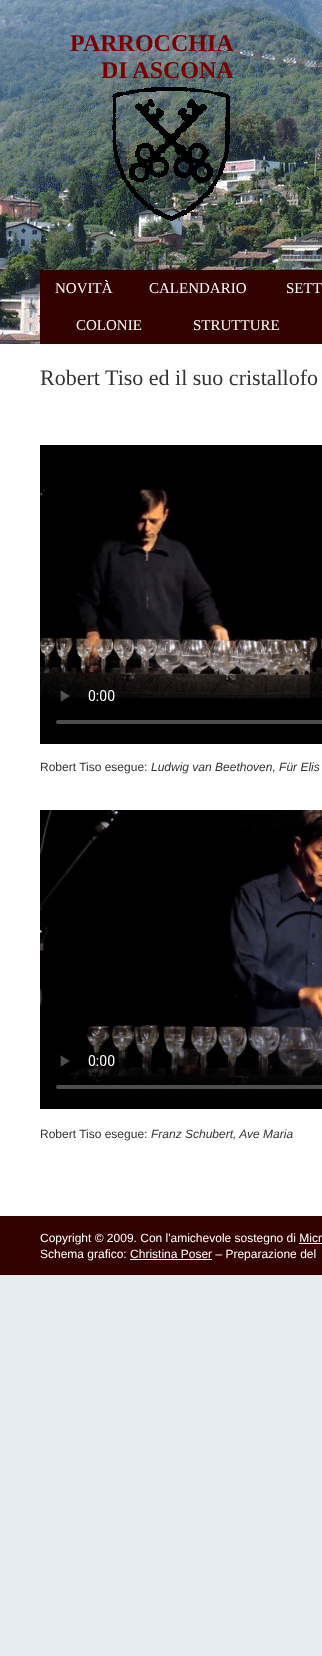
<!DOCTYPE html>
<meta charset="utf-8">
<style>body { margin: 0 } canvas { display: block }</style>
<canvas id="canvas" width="322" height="1656"></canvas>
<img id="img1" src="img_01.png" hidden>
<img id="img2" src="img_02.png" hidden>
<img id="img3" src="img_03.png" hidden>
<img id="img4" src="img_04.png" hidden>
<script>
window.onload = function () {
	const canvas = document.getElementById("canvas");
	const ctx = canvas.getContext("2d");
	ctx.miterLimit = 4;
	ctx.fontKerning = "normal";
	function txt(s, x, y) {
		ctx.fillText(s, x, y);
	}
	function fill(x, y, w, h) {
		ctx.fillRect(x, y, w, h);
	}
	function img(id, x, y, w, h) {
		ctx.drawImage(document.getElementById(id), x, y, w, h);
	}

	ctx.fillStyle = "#E5EBF0";
	fill(0, 0, 322, 1656);
	img("img1", 0, 0, 322, 344);
	img("img2", 112, 87, 118, 134);
	ctx.fillStyle = "#330000";
	fill(40, 270, 282, 37);
	fill(40, 307, 282, 37);
	ctx.fillStyle = "#FFFFFF";
	fill(0, 344, 322, 872);
	img("img3", 40, 445, 282, 299);
	img("img4", 40, 810, 282, 299);
	ctx.fillStyle = "#330000";
	fill(0, 1216, 322, 59);
	ctx.fillStyle = "#FFFFFF";
	fill(299, 1243, 23, 1);
	fill(130, 1259, 82, 1);
	ctx.font = "bold 24px Liberation Serif";
	ctx.fillStyle = "#770000";
	txt("PARROCCHIA", 70, 51);
	txt("DI ASCONA", 101, 78);
	ctx.font = "15px Liberation Serif";
	ctx.fillStyle = "#FFFFFF";
	txt("NOVITÀ", 55, 293);
	txt("CALENDARIO", 149, 293);
	txt("SETT", 286, 293);
	txt("COLONIE", 76, 330);
	txt("STRUTTURE", 193, 330);
	ctx.font = "22px Liberation Serif";
	ctx.fillStyle = "#333333";
	txt("Robert Tiso ed il suo cristallofo", 40, 385);
	ctx.font = "12px Liberation Sans";
	txt("Robert Tiso esegue:", 40, 771);
	ctx.font = "italic 12px Liberation Sans";
	txt("Ludwig van Beethoven, Für Elis", 151, 771);
	ctx.font = "12px Liberation Sans";
	txt("Robert Tiso esegue:", 40, 1138);
	ctx.font = "italic 12px Liberation Sans";
	txt("Franz Schubert, Ave Maria", 151, 1138);
	ctx.font = "12px Liberation Sans";
	ctx.fillStyle = "#FFFFFF";
	txt("Copyright © 2009. Con l'amichevole sostegno di Micr", 40, 1242);
	txt("Schema grafico: Christina Poser – Preparazione del", 40, 1258);
};
</script>
